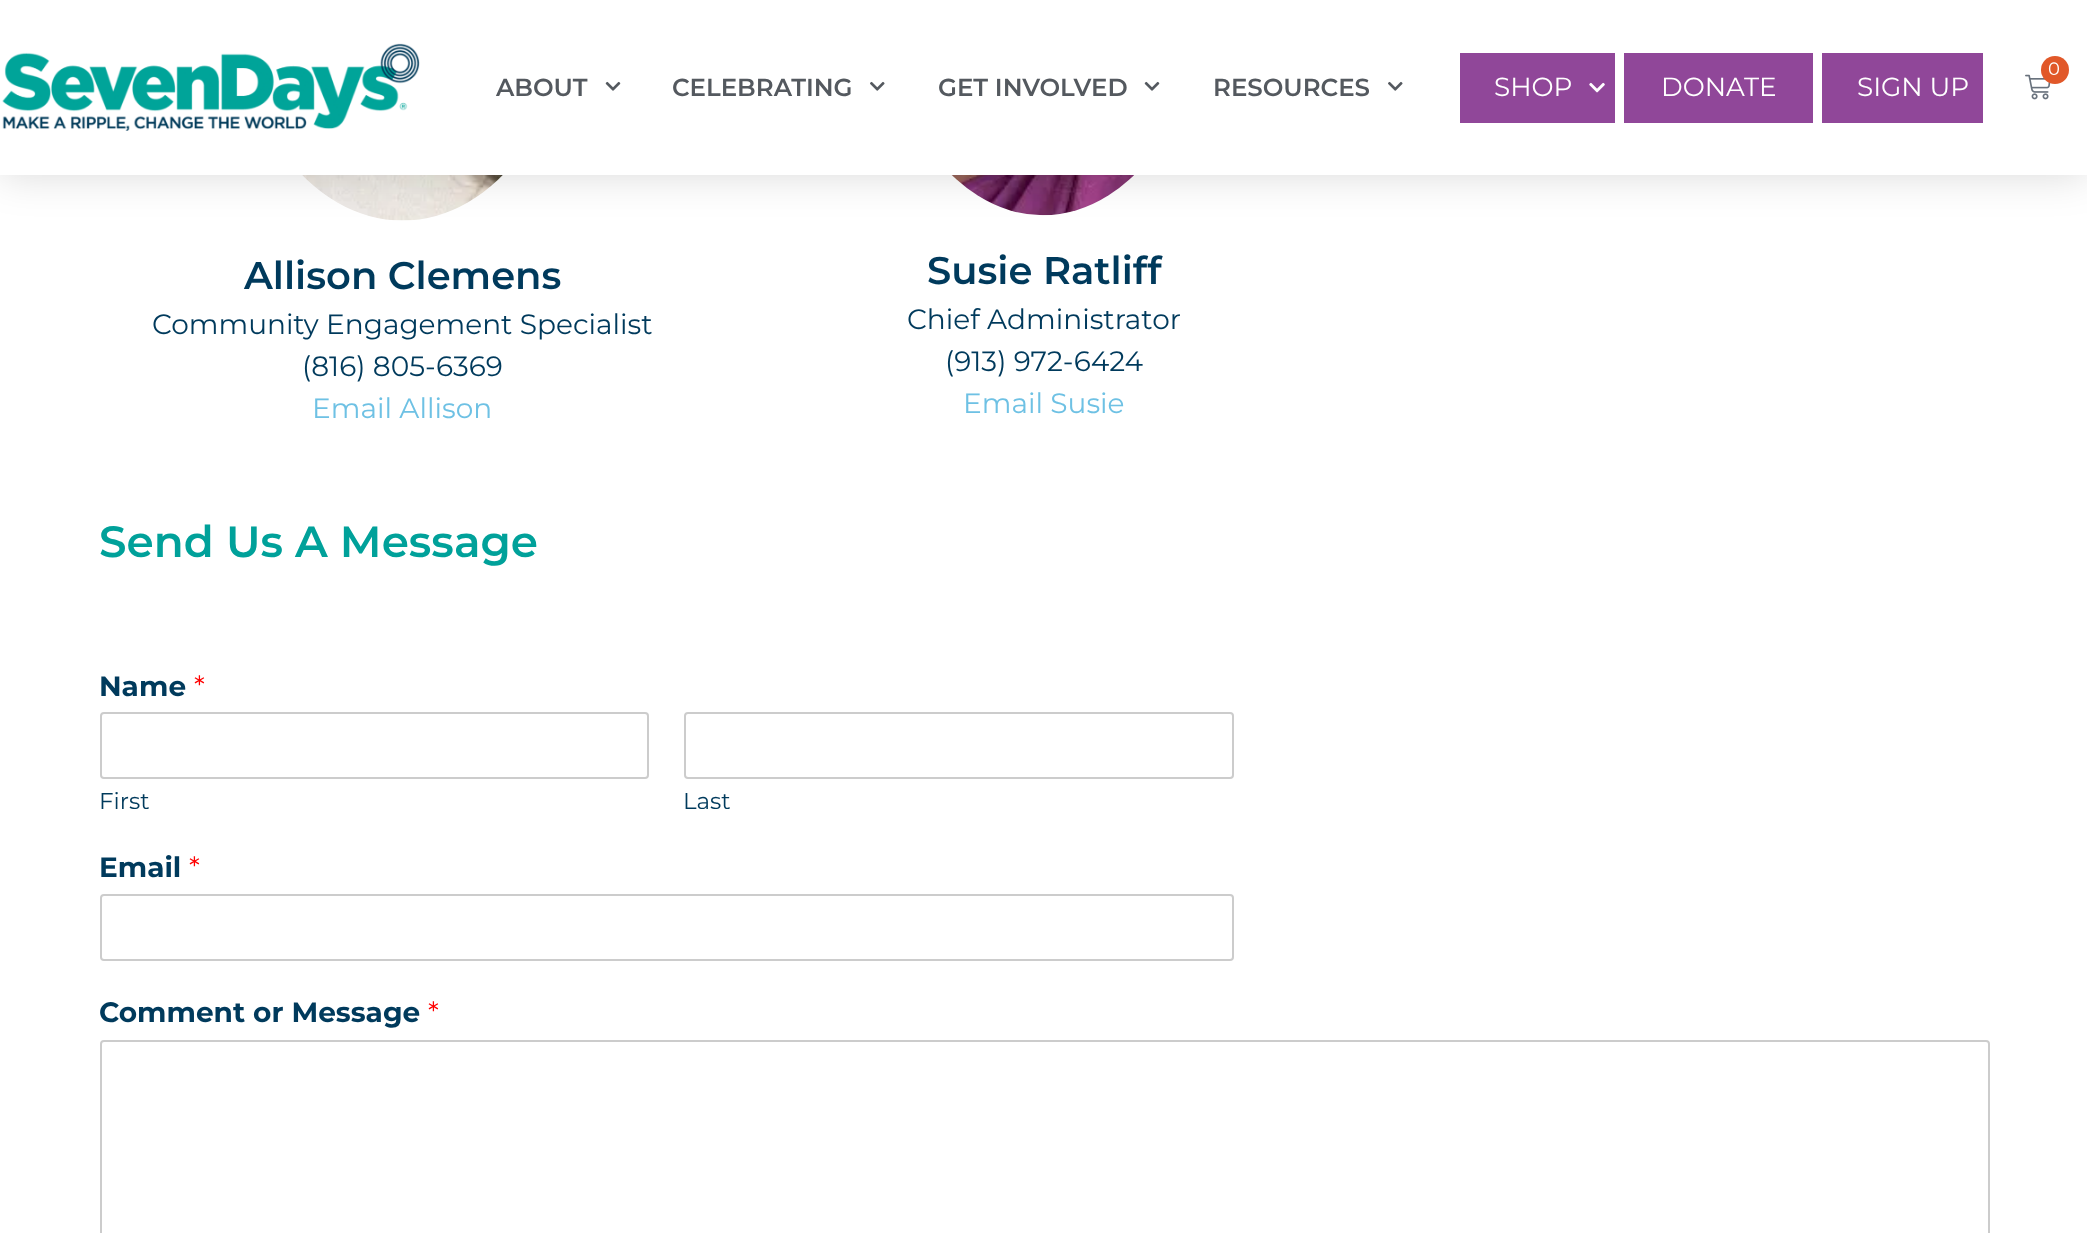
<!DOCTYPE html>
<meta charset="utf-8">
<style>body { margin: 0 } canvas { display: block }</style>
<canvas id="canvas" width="2087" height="1233"></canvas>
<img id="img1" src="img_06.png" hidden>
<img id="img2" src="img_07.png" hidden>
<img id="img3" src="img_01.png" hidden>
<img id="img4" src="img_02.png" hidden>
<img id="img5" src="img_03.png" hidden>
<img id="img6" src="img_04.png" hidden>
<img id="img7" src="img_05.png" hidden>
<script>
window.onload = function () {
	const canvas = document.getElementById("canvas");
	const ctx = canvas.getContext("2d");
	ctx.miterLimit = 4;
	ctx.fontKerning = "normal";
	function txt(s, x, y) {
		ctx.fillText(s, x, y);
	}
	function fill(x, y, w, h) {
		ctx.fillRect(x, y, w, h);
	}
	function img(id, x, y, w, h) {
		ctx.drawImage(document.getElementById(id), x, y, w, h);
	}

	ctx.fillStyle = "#FFFFFF";
	fill(0, 0, 2087, 1233);
	img("img1", 302, 175, 201, 46);
	img("img2", 951, 175, 183, 41);
	ctx.fillStyle = "rgba(0, 0, 0, 0.15)";
	ctx.filter = "blur(21px)";
	ctx.beginPath();
	ctx.rect(0, 0, 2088, 175);
	ctx.fill();
	ctx.filter = "none";
	ctx.fillStyle = "#FFFFFF";
	fill(0, 0, 2087, 175);
	img("img3", 2, 43, 418, 88);
	img("img4", 605, 81, 16, 10);
	img("img5", 870, 81, 15, 10);
	img("img4", 1144, 81, 16, 10);
	img("img5", 1388, 81, 15, 10);
	img("img6", 2025, 74, 26, 26);
	ctx.fillStyle = "#E15829";
	ctx.beginPath();
	ctx.arc(2055, 70, 14, 0, Math.PI * 2);
	ctx.fill();
	ctx.fillStyle = "#904799";
	fill(1460, 53, 155, 70);
	img("img7", 1589, 82, 16, 11);
	fill(1624, 53, 189, 70);
	fill(1822, 53, 161, 70);
	ctx.beginPath();
	ctx.roundRect(101, 713, 547, 65, 3);
	ctx.strokeStyle = "#CCCCCC";
	ctx.lineWidth = 2;
	ctx.stroke();
	ctx.beginPath();
	ctx.roundRect(685, 713, 548, 65, 3);
	ctx.stroke();
	ctx.beginPath();
	ctx.roundRect(101, 895, 1132, 65, 3);
	ctx.stroke();
	ctx.beginPath();
	ctx.roundRect(101, 1041, 1888, 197, 3);
	ctx.stroke();
	ctx.font = "600 24.5px Montserrat";
	ctx.fillStyle = "#54595F";
	txt("ABOUT", 496, 96);
	txt("CELEBRATING", 672, 96);
	txt("GET INVOLVED", 938, 96);
	txt("RESOURCES", 1213, 96);
	ctx.font = "18px Montserrat";
	ctx.fillStyle = "#FFFFFF";
	txt("0", 2048, 75);
	ctx.font = "26.25px Montserrat";
	txt("SHOP", 1494, 96);
	txt("DONATE", 1661, 96);
	txt("SIGN UP", 1857, 96);
	ctx.font = "600 38.5px Montserrat";
	ctx.fillStyle = "#003A5C";
	txt("Allison Clemens", 244, 289);
	ctx.font = "28px Montserrat";
	txt("Community Engagement Specialist", 152, 334);
	txt("(816) 805-6369", 302, 376);
	ctx.fillStyle = "#6EC1E4";
	txt("Email Allison", 312, 418);
	ctx.font = "600 38.5px Montserrat";
	ctx.fillStyle = "#003A5C";
	txt("Susie Ratliff", 927, 284);
	ctx.font = "28px Montserrat";
	txt("Chief Administrator", 907, 329);
	txt("(913) 972-6424", 945, 371);
	ctx.fillStyle = "#6EC1E4";
	txt("Email Susie", 963, 413);
	ctx.font = "600 43.75px Montserrat";
	ctx.fillStyle = "#00A19A";
	txt("Send Us A Message", 99, 557);
	ctx.font = "bold 28px Montserrat";
	ctx.fillStyle = "#003A5C";
	txt("Name", 99, 696);
	ctx.font = "28px Montserrat";
	ctx.fillStyle = "#FF0000";
	txt("*", 194, 696);
	ctx.font = "23px Montserrat";
	ctx.fillStyle = "#003A5C";
	txt("First", 99, 809);
	txt("Last", 683, 809);
	ctx.font = "bold 28px Montserrat";
	txt("Email", 99, 877);
	ctx.font = "28px Montserrat";
	ctx.fillStyle = "#FF0000";
	txt("*", 189, 877);
	ctx.font = "bold 28px Montserrat";
	ctx.fillStyle = "#003A5C";
	txt("Comment or Message", 99, 1022);
	ctx.font = "28px Montserrat";
	ctx.fillStyle = "#FF0000";
	txt("*", 428, 1022);
};
</script>
